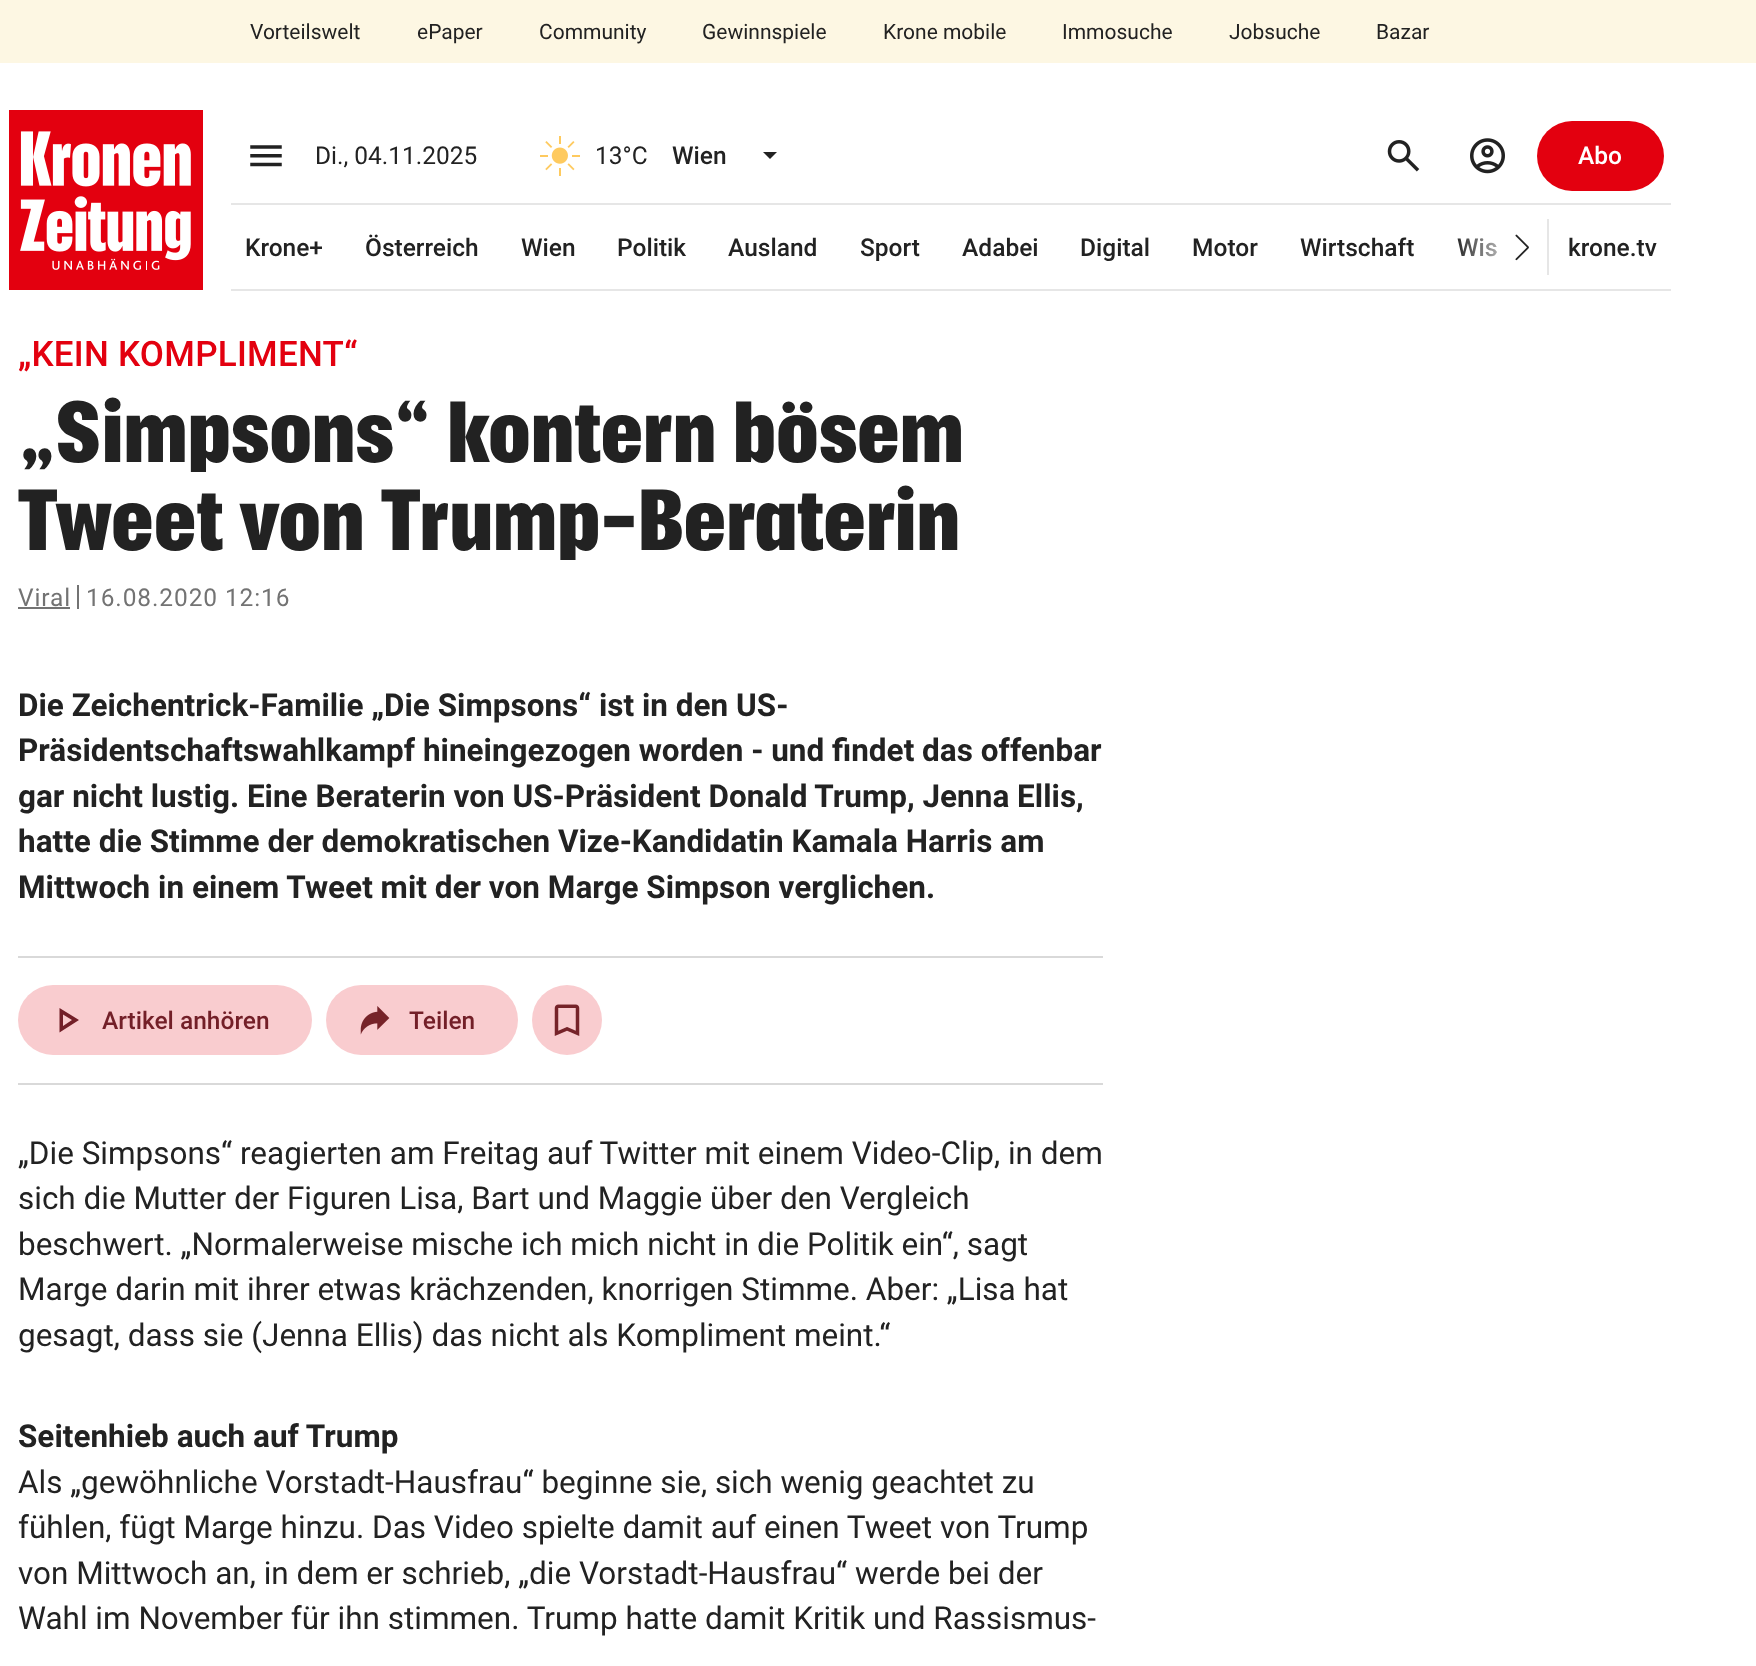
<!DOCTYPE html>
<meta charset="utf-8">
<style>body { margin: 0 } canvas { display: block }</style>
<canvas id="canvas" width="1756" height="1666"></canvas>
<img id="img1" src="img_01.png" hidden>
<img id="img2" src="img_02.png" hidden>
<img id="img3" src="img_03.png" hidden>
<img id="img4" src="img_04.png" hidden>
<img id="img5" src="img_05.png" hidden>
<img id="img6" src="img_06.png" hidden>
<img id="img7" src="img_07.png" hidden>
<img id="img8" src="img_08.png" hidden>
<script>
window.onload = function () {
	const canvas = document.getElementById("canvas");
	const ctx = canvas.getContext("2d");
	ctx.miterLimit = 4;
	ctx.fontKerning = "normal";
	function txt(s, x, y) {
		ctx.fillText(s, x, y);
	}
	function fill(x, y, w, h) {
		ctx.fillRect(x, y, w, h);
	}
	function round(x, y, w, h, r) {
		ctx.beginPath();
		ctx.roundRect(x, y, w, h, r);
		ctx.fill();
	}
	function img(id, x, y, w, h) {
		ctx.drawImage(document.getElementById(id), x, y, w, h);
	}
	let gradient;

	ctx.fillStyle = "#FFFFFF";
	fill(0, 0, 1756, 1666);
	ctx.fillStyle = "#FDF7E3";
	fill(0, 0, 1756, 63);
	img("img1", 9, 110, 194, 180);
	ctx.fillStyle = "#E6E6E6";
	fill(231, 203, 1440, 2);
	img("img2", 250, 145, 32, 22);
	img("img3", 540, 136, 40, 40);
	ctx.fillStyle = "#222222";
	ctx.beginPath();
	ctx.moveTo(763, 152);
	ctx.lineTo(777, 152);
	ctx.lineTo(770, 159);
	ctx.closePath();
	ctx.fill();
	img("img4", 1387, 140, 33, 32);
	img("img5", 1470, 138, 35, 36);
	ctx.fillStyle = "#E3000F";
	round(1537, 121, 127, 70, 35);
	ctx.fillStyle = "#E6E6E6";
	fill(231, 289, 1440, 2);
	img("img6", 1515, 234, 14, 27);
	fill(1547, 219, 2, 56);
	ctx.fillStyle = "#737373";
	fill(18, 607, 52, 2);
	fill(77, 585, 2, 24);
	ctx.fillStyle = "#D9D9D9";
	fill(18, 956, 1085, 2);
	fill(18, 1083, 1085, 2);
	ctx.fillStyle = "#F9CCCF";
	round(18, 985, 294, 70, 35);
	ctx.fillStyle = "#731F28";
	ctx.beginPath();
	ctx.moveTo(59.5, 1032.5);
	ctx.lineTo(59.5, 1008);
	ctx.lineTo(79, 1020);
	ctx.closePath();
	ctx.moveTo(63, 1020);
	ctx.lineTo(63, 1020);
	ctx.closePath();
	ctx.moveTo(63, 1026);
	ctx.lineTo(72, 1020);
	ctx.lineTo(63, 1014.5);
	ctx.closePath();
	ctx.fill();
	ctx.fillStyle = "#F9CCCF";
	round(326, 985, 192, 70, 35);
	img("img7", 360, 1006, 30, 29);
	ctx.beginPath();
	ctx.arc(567, 1020, 35, 0, Math.PI * 2);
	ctx.fill();
	img("img8", 554, 1004, 26, 32);
	ctx.font = "21px Roboto";
	ctx.fillStyle = "#222222";
	txt("Vorteilswelt", 250, 39);
	txt("ePaper", 417, 39);
	txt("Community", 539, 39);
	txt("Gewinnspiele", 702, 39);
	txt("Krone mobile", 883, 39);
	txt("Immosuche", 1062, 39);
	txt("Jobsuche", 1229, 39);
	txt("Bazar", 1376, 39);
	ctx.font = "24.5px Roboto";
	txt("Di., 04.11.2025", 315, 164);
	txt("13°C", 595, 164);
	ctx.font = "500 24.5px Roboto";
	txt("Wien", 672, 164);
	ctx.fillStyle = "#FFFFFF";
	txt("Abo", 1578, 164);
	ctx.fillStyle = "#222222";
	txt("Krone+", 245, 256);
	txt("Österreich", 365, 256);
	txt("Wien", 521, 256);
	txt("Politik", 617, 256);
	txt("Ausland", 728, 256);
	txt("Sport", 860, 256);
	txt("Adabei", 962, 256);
	txt("Digital", 1080, 256);
	txt("Motor", 1192, 256);
	txt("Wirtschaft", 1300, 256);
	txt("Wis", 1457, 256);
	gradient = ctx.createLinearGradient(1454, 247, 1556, 247);
	gradient.addColorStop(0, "rgba(255, 255, 255, 0)");
	gradient.addColorStop(0.6, "rgba(255, 255, 255, 0.88)");
	gradient.addColorStop(1, "#FFFFFF");
	ctx.fillStyle = gradient;
	fill(1457, 238, 39, 19);
	ctx.fillStyle = "#222222";
	txt("krone.tv", 1568, 256);
	ctx.letterSpacing = "0.25px";
	ctx.font = "500 35px Roboto";
	ctx.fillStyle = "#E3000F";
	txt("„KEIN KOMPLIMENT“", 18, 366);
	ctx.font = "bold 84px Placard";
	ctx.fillStyle = "#222222";
	txt("„Simpsons“ kontern bösem", 18, 462);
	txt("Tweet von Trump-Beraterin", 18, 550);
	ctx.letterSpacing = "0.9px";
	ctx.font = "24.5px Roboto";
	ctx.fillStyle = "#737373";
	txt("Viral", 18, 606);
	txt("16.08.2020 12:16", 86, 606);
	ctx.letterSpacing = "0px";
	ctx.font = "bold 31.5px Roboto";
	ctx.fillStyle = "#222222";
	txt("Die Zeichentrick-Familie „Die Simpsons“ ist in den US-", 18, 716);
	txt("Präsidentschaftswahlkampf hineingezogen worden - und findet das offenbar", 18, 761);
	txt("gar nicht lustig. Eine Beraterin von US-Präsident Donald Trump, Jenna Ellis,", 18, 807);
	txt("hatte die Stimme der demokratischen Vize-Kandidatin Kamala Harris am", 18, 852);
	txt("Mittwoch in einem Tweet mit der von Marge Simpson verglichen.", 18, 898);
	ctx.font = "500 24.5px Roboto";
	ctx.fillStyle = "#731F28";
	txt("Artikel anhören", 102, 1029);
	txt("Teilen", 409, 1029);
	ctx.font = "31.5px Roboto";
	ctx.fillStyle = "#222222";
	txt("„Die Simpsons“ reagierten am Freitag auf Twitter mit einem Video-Clip, in dem", 18, 1164);
	txt("sich die Mutter der Figuren Lisa, Bart und Maggie über den Vergleich", 18, 1209);
	txt("beschwert. „Normalerweise mische ich mich nicht in die Politik ein“, sagt", 18, 1255);
	txt("Marge darin mit ihrer etwas krächzenden, knorrigen Stimme. Aber: „Lisa hat", 18, 1300);
	txt("gesagt, dass sie (Jenna Ellis) das nicht als Kompliment meint.“", 18, 1346);
	ctx.font = "bold 31.5px Roboto";
	txt("Seitenhieb auch auf Trump", 18, 1447);
	ctx.font = "31.5px Roboto";
	txt("Als „gewöhnliche Vorstadt-Hausfrau“ beginne sie, sich wenig geachtet zu", 18, 1493);
	txt("fühlen, fügt Marge hinzu. Das Video spielte damit auf einen Tweet von Trump", 18, 1538);
	txt("von Mittwoch an, in dem er schrieb, „die Vorstadt-Hausfrau“ werde bei der", 18, 1584);
	txt("Wahl im November für ihn stimmen. Trump hatte damit Kritik und Rassismus-", 18, 1629);
};
</script>
